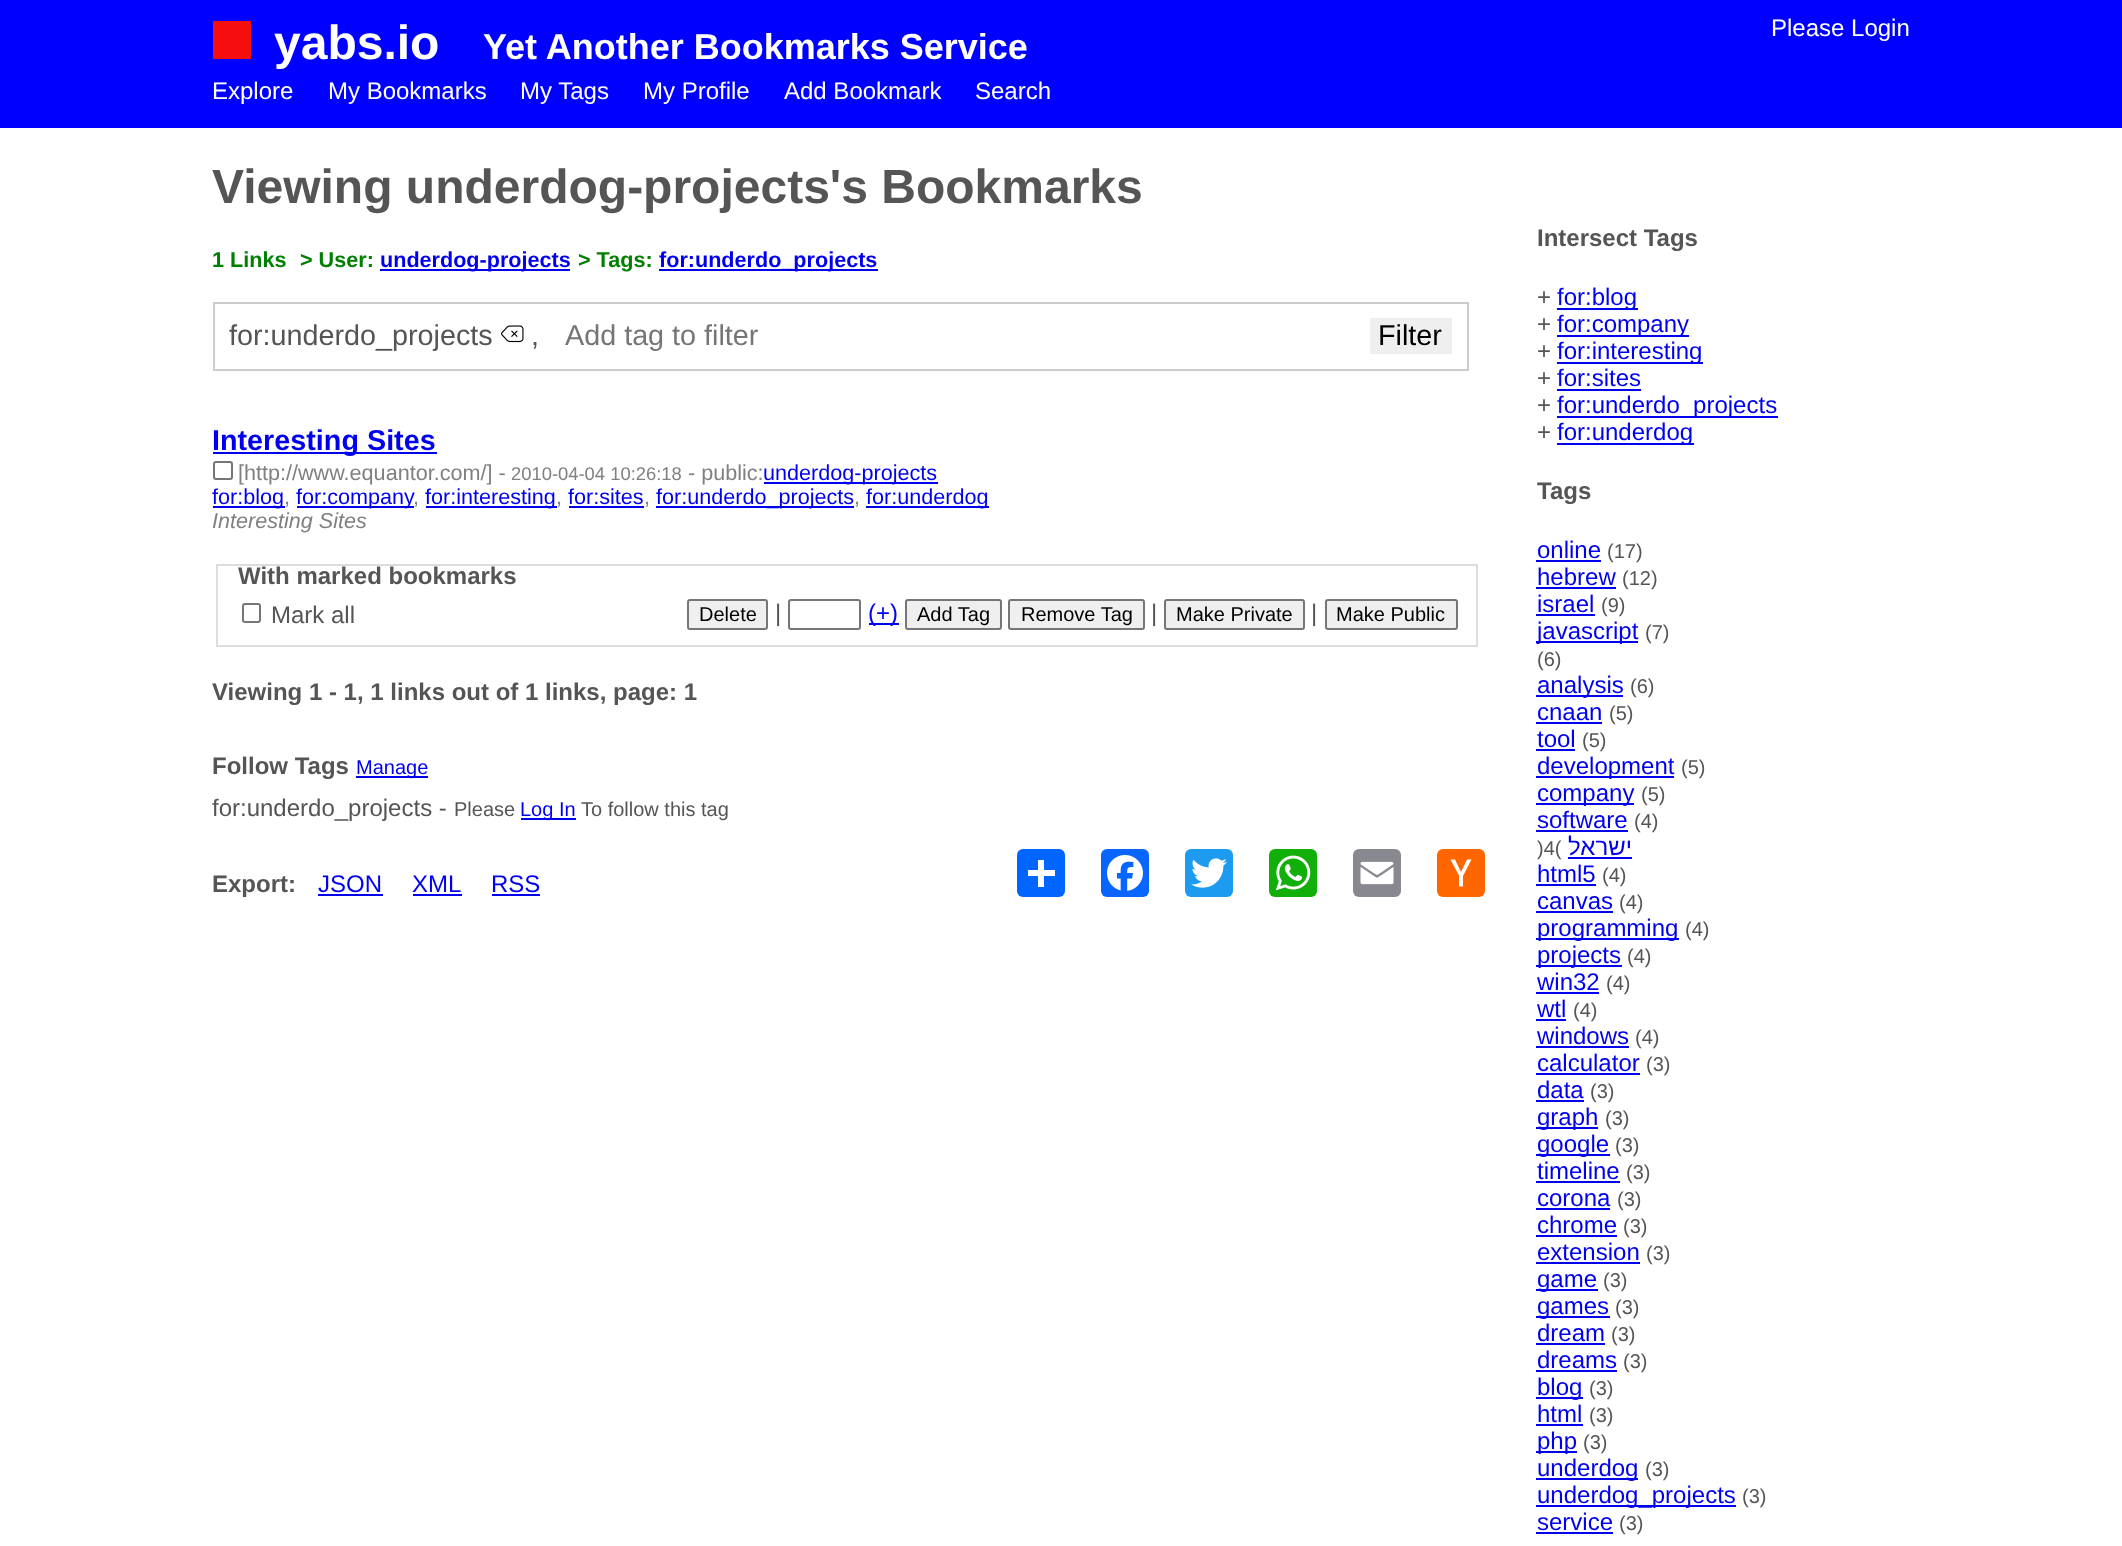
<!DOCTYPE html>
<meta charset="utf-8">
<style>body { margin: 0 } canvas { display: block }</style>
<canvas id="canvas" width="2122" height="1546"></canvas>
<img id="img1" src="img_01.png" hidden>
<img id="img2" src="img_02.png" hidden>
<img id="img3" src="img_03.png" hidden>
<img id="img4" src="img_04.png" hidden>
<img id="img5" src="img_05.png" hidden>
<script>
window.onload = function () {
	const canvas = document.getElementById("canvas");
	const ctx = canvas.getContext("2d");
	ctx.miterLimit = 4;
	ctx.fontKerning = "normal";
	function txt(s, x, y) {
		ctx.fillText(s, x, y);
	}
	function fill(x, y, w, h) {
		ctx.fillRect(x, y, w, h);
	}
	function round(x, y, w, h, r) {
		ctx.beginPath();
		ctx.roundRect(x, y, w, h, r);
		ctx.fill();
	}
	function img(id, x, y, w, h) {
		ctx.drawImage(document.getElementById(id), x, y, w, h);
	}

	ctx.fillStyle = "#FFFFFF";
	fill(0, 0, 2122, 1546);
	ctx.fillStyle = "#0000FF";
	fill(0, 0, 2122, 128);
	ctx.fillStyle = "#F60E0E";
	fill(213, 21, 38, 38);
	ctx.fillStyle = "#0000EE";
	fill(380, 269, 190, 2);
	fill(659, 269, 219, 2);
	fill(1557, 308, 81, 2);
	fill(1557, 335, 132, 2);
	fill(1557, 362, 146, 2);
	fill(1557, 389, 84, 2);
	fill(1557, 416, 221, 2);
	fill(1557, 443, 137, 2);
	fill(1536, 560, 65, 2);
	fill(1536, 587, 80, 2);
	fill(1536, 614, 59, 2);
	fill(1536, 641, 102, 2);
	fill(1536, 695, 87, 2);
	fill(1536, 722, 66, 2);
	fill(1536, 749, 39, 2);
	fill(1536, 776, 138, 2);
	fill(1536, 803, 98, 2);
	fill(1536, 830, 92, 2);
	fill(1568, 857, 64, 2);
	fill(1536, 884, 60, 2);
	fill(1536, 911, 77, 2);
	fill(1536, 938, 143, 2);
	fill(1536, 965, 86, 2);
	fill(1536, 992, 63, 2);
	fill(1536, 1019, 30, 2);
	fill(1536, 1046, 93, 2);
	fill(1536, 1073, 104, 2);
	fill(1536, 1100, 48, 2);
	fill(1536, 1127, 62, 2);
	fill(1536, 1154, 74, 2);
	fill(1536, 1181, 84, 2);
	fill(1536, 1208, 74, 2);
	fill(1536, 1235, 81, 2);
	fill(1536, 1262, 104, 2);
	fill(1536, 1289, 62, 2);
	fill(1536, 1316, 74, 2);
	fill(1536, 1343, 69, 2);
	fill(1536, 1370, 81, 2);
	fill(1536, 1397, 47, 2);
	fill(1536, 1424, 47, 2);
	fill(1536, 1451, 41, 2);
	fill(1536, 1478, 102, 2);
	fill(1536, 1505, 200, 2);
	fill(1536, 1532, 77, 2);
	ctx.strokeStyle = "#CCCCCC";
	ctx.lineWidth = 2;
	ctx.strokeRect(214, 303, 1254, 67);
	img("img1", 501, 325, 23, 18);
	ctx.fillStyle = "#EFEFEF";
	fill(1370, 318, 82, 36);
	ctx.fillStyle = "#0000EE";
	fill(213, 452, 224, 2);
	ctx.beginPath();
	ctx.roundRect(214, 462, 18, 17, 2);
	ctx.strokeStyle = "#767676";
	ctx.stroke();
	fill(764, 482, 174, 2);
	fill(213, 506, 72, 2);
	fill(297, 506, 117, 2);
	fill(426, 506, 131, 2);
	fill(569, 506, 75, 2);
	fill(656, 506, 198, 2);
	fill(866, 506, 123, 2);
	ctx.strokeStyle = "#DDDDDD";
	ctx.strokeRect(217, 565, 1260, 81);
	ctx.beginPath();
	ctx.roundRect(243, 604, 17, 18, 2);
	ctx.strokeStyle = "#767676";
	ctx.stroke();
	ctx.fillStyle = "#EFEFEF";
	ctx.beginPath();
	ctx.roundRect(688, 600, 79, 29, 2);
	ctx.fill();
	ctx.stroke();
	ctx.beginPath();
	ctx.roundRect(789, 600, 71, 29, 2);
	ctx.stroke();
	ctx.fillStyle = "#0000EE";
	fill(869, 623, 30, 2);
	ctx.fillStyle = "#EFEFEF";
	ctx.beginPath();
	ctx.roundRect(906, 600, 95, 29, 2);
	ctx.fill();
	ctx.stroke();
	ctx.beginPath();
	ctx.roundRect(1009, 600, 135, 29, 2);
	ctx.fill();
	ctx.stroke();
	ctx.beginPath();
	ctx.roundRect(1165, 600, 139, 29, 2);
	ctx.fill();
	ctx.stroke();
	ctx.beginPath();
	ctx.roundRect(1326, 600, 131, 29, 2);
	ctx.fill();
	ctx.stroke();
	ctx.fillStyle = "#0000EE";
	fill(356, 776, 72, 2);
	fill(521, 818, 55, 2);
	fill(318, 894, 65, 2);
	fill(413, 894, 49, 2);
	fill(492, 894, 48, 2);
	ctx.fillStyle = "#0166FF";
	round(1017, 849, 48, 48, 6);
	ctx.fillStyle = "#FFFFFF";
	fill(1038, 860, 6, 27);
	fill(1028, 870, 27, 6);
	ctx.fillStyle = "#0866FF";
	round(1101, 849, 48, 48, 6);
	img("img2", 1107, 855, 36, 36);
	ctx.fillStyle = "#1D9BF0";
	round(1185, 849, 48, 48, 6);
	img("img3", 1191, 858, 36, 30);
	ctx.fillStyle = "#12AF0A";
	round(1269, 849, 48, 48, 6);
	img("img4", 1275, 855, 36, 36);
	ctx.fillStyle = "#888990";
	round(1353, 849, 48, 48, 6);
	img("img5", 1360, 861, 34, 24);
	ctx.fillStyle = "#FF6600";
	round(1437, 849, 48, 48, 6);
	ctx.fillStyle = "#FFFFFF";
	ctx.beginPath();
	ctx.moveTo(1463, 876);
	ctx.lineTo(1463, 886.5);
	ctx.lineTo(1459, 886.5);
	ctx.lineTo(1459, 875.5);
	ctx.lineTo(1450.5, 859.5);
	ctx.lineTo(1455, 859.5);
	ctx.lineTo(1461, 872);
	ctx.lineTo(1467, 859.5);
	ctx.lineTo(1471.5, 859.5);
	ctx.closePath();
	ctx.fill();
	ctx.font = "bold 48px Liberation Sans";
	txt("yabs.io", 274, 59);
	ctx.font = "bold 36px Liberation Sans";
	txt("Yet Another Bookmarks Service", 483, 59);
	ctx.font = "24px Liberation Sans";
	txt("Please Login", 1771, 36);
	txt("Explore", 212, 99);
	txt("My Bookmarks", 328, 99);
	txt("My Tags", 520, 99);
	txt("My Profile", 643, 99);
	txt("Add Bookmark", 784, 99);
	txt("Search", 975, 99);
	ctx.font = "bold 48px Liberation Sans";
	ctx.fillStyle = "#555555";
	txt("Viewing underdog-projects's Bookmarks", 212, 203);
	ctx.font = "bold 21.6px Liberation Sans";
	ctx.fillStyle = "#008000";
	txt("1 Links", 212, 267);
	txt("> User:", 300, 267);
	ctx.fillStyle = "#0000EE";
	txt("underdog-projects", 380, 267);
	ctx.fillStyle = "#008000";
	txt("> Tags:", 578, 267);
	ctx.fillStyle = "#0000EE";
	txt("for:underdo_projects", 659, 267);
	ctx.font = "bold 24px Liberation Sans";
	ctx.fillStyle = "#555555";
	txt("Intersect Tags", 1537, 246);
	ctx.font = "24px Liberation Sans";
	txt("+", 1537, 305);
	ctx.fillStyle = "#0000EE";
	txt("for:blog", 1557, 305);
	ctx.fillStyle = "#555555";
	txt("+", 1537, 332);
	ctx.fillStyle = "#0000EE";
	txt("for:company", 1557, 332);
	ctx.fillStyle = "#555555";
	txt("+", 1537, 359);
	ctx.fillStyle = "#0000EE";
	txt("for:interesting", 1557, 359);
	ctx.fillStyle = "#555555";
	txt("+", 1537, 386);
	ctx.fillStyle = "#0000EE";
	txt("for:sites", 1557, 386);
	ctx.fillStyle = "#555555";
	txt("+", 1537, 413);
	ctx.fillStyle = "#0000EE";
	txt("for:underdo_projects", 1557, 413);
	ctx.fillStyle = "#555555";
	txt("+", 1537, 440);
	ctx.fillStyle = "#0000EE";
	txt("for:underdog", 1557, 440);
	ctx.font = "bold 24px Liberation Sans";
	ctx.fillStyle = "#555555";
	txt("Tags", 1537, 499);
	ctx.font = "24px Liberation Sans";
	ctx.fillStyle = "#0000EE";
	txt("online", 1537, 558);
	ctx.font = "20px Liberation Sans";
	ctx.fillStyle = "#555555";
	txt("(17)", 1607, 558);
	ctx.font = "24px Liberation Sans";
	ctx.fillStyle = "#0000EE";
	txt("hebrew", 1537, 585);
	ctx.font = "20px Liberation Sans";
	ctx.fillStyle = "#555555";
	txt("(12)", 1622, 585);
	ctx.font = "24px Liberation Sans";
	ctx.fillStyle = "#0000EE";
	txt("israel", 1537, 612);
	ctx.font = "20px Liberation Sans";
	ctx.fillStyle = "#555555";
	txt("(9)", 1601, 612);
	ctx.font = "24px Liberation Sans";
	ctx.fillStyle = "#0000EE";
	txt("javascript", 1537, 639);
	ctx.font = "20px Liberation Sans";
	ctx.fillStyle = "#555555";
	txt("(7)", 1645, 639);
	txt("(6)", 1537, 666);
	ctx.font = "24px Liberation Sans";
	ctx.fillStyle = "#0000EE";
	txt("analysis", 1537, 693);
	ctx.font = "20px Liberation Sans";
	ctx.fillStyle = "#555555";
	txt("(6)", 1630, 693);
	ctx.font = "24px Liberation Sans";
	ctx.fillStyle = "#0000EE";
	txt("cnaan", 1537, 720);
	ctx.font = "20px Liberation Sans";
	ctx.fillStyle = "#555555";
	txt("(5)", 1609, 720);
	ctx.font = "24px Liberation Sans";
	ctx.fillStyle = "#0000EE";
	txt("tool", 1537, 747);
	ctx.font = "20px Liberation Sans";
	ctx.fillStyle = "#555555";
	txt("(5)", 1582, 747);
	ctx.font = "24px Liberation Sans";
	ctx.fillStyle = "#0000EE";
	txt("development", 1537, 774);
	ctx.font = "20px Liberation Sans";
	ctx.fillStyle = "#555555";
	txt("(5)", 1681, 774);
	ctx.font = "24px Liberation Sans";
	ctx.fillStyle = "#0000EE";
	txt("company", 1537, 801);
	ctx.font = "20px Liberation Sans";
	ctx.fillStyle = "#555555";
	txt("(5)", 1641, 801);
	ctx.font = "24px Liberation Sans";
	ctx.fillStyle = "#0000EE";
	txt("software", 1537, 828);
	ctx.font = "20px Liberation Sans";
	ctx.fillStyle = "#555555";
	txt("(4)", 1634, 828);
	txt(")4(", 1537, 855);
	ctx.direction = "rtl";
	ctx.font = "24px Liberation Sans";
	ctx.fillStyle = "#0000EE";
	txt("ישראל", 1632, 855);
	ctx.direction = "ltr";
	txt("html5", 1537, 882);
	ctx.font = "20px Liberation Sans";
	ctx.fillStyle = "#555555";
	txt("(4)", 1602, 882);
	ctx.font = "24px Liberation Sans";
	ctx.fillStyle = "#0000EE";
	txt("canvas", 1537, 909);
	ctx.font = "20px Liberation Sans";
	ctx.fillStyle = "#555555";
	txt("(4)", 1619, 909);
	ctx.font = "24px Liberation Sans";
	ctx.fillStyle = "#0000EE";
	txt("programming", 1537, 936);
	ctx.font = "20px Liberation Sans";
	ctx.fillStyle = "#555555";
	txt("(4)", 1685, 936);
	ctx.font = "24px Liberation Sans";
	ctx.fillStyle = "#0000EE";
	txt("projects", 1537, 963);
	ctx.font = "20px Liberation Sans";
	ctx.fillStyle = "#555555";
	txt("(4)", 1627, 963);
	ctx.font = "24px Liberation Sans";
	ctx.fillStyle = "#0000EE";
	txt("win32", 1537, 990);
	ctx.font = "20px Liberation Sans";
	ctx.fillStyle = "#555555";
	txt("(4)", 1606, 990);
	ctx.font = "24px Liberation Sans";
	ctx.fillStyle = "#0000EE";
	txt("wtl", 1537, 1017);
	ctx.font = "20px Liberation Sans";
	ctx.fillStyle = "#555555";
	txt("(4)", 1573, 1017);
	ctx.font = "24px Liberation Sans";
	ctx.fillStyle = "#0000EE";
	txt("windows", 1537, 1044);
	ctx.font = "20px Liberation Sans";
	ctx.fillStyle = "#555555";
	txt("(4)", 1635, 1044);
	ctx.font = "24px Liberation Sans";
	ctx.fillStyle = "#0000EE";
	txt("calculator", 1537, 1071);
	ctx.font = "20px Liberation Sans";
	ctx.fillStyle = "#555555";
	txt("(3)", 1646, 1071);
	ctx.font = "24px Liberation Sans";
	ctx.fillStyle = "#0000EE";
	txt("data", 1537, 1098);
	ctx.font = "20px Liberation Sans";
	ctx.fillStyle = "#555555";
	txt("(3)", 1590, 1098);
	ctx.font = "24px Liberation Sans";
	ctx.fillStyle = "#0000EE";
	txt("graph", 1537, 1125);
	ctx.font = "20px Liberation Sans";
	ctx.fillStyle = "#555555";
	txt("(3)", 1605, 1125);
	ctx.font = "24px Liberation Sans";
	ctx.fillStyle = "#0000EE";
	txt("google", 1537, 1152);
	ctx.font = "20px Liberation Sans";
	ctx.fillStyle = "#555555";
	txt("(3)", 1615, 1152);
	ctx.font = "24px Liberation Sans";
	ctx.fillStyle = "#0000EE";
	txt("timeline", 1537, 1179);
	ctx.font = "20px Liberation Sans";
	ctx.fillStyle = "#555555";
	txt("(3)", 1626, 1179);
	ctx.font = "24px Liberation Sans";
	ctx.fillStyle = "#0000EE";
	txt("corona", 1537, 1206);
	ctx.font = "20px Liberation Sans";
	ctx.fillStyle = "#555555";
	txt("(3)", 1617, 1206);
	ctx.font = "24px Liberation Sans";
	ctx.fillStyle = "#0000EE";
	txt("chrome", 1537, 1233);
	ctx.font = "20px Liberation Sans";
	ctx.fillStyle = "#555555";
	txt("(3)", 1623, 1233);
	ctx.font = "24px Liberation Sans";
	ctx.fillStyle = "#0000EE";
	txt("extension", 1537, 1260);
	ctx.font = "20px Liberation Sans";
	ctx.fillStyle = "#555555";
	txt("(3)", 1646, 1260);
	ctx.font = "24px Liberation Sans";
	ctx.fillStyle = "#0000EE";
	txt("game", 1537, 1287);
	ctx.font = "20px Liberation Sans";
	ctx.fillStyle = "#555555";
	txt("(3)", 1603, 1287);
	ctx.font = "24px Liberation Sans";
	ctx.fillStyle = "#0000EE";
	txt("games", 1537, 1314);
	ctx.font = "20px Liberation Sans";
	ctx.fillStyle = "#555555";
	txt("(3)", 1615, 1314);
	ctx.font = "24px Liberation Sans";
	ctx.fillStyle = "#0000EE";
	txt("dream", 1537, 1341);
	ctx.font = "20px Liberation Sans";
	ctx.fillStyle = "#555555";
	txt("(3)", 1611, 1341);
	ctx.font = "24px Liberation Sans";
	ctx.fillStyle = "#0000EE";
	txt("dreams", 1537, 1368);
	ctx.font = "20px Liberation Sans";
	ctx.fillStyle = "#555555";
	txt("(3)", 1623, 1368);
	ctx.font = "24px Liberation Sans";
	ctx.fillStyle = "#0000EE";
	txt("blog", 1537, 1395);
	ctx.font = "20px Liberation Sans";
	ctx.fillStyle = "#555555";
	txt("(3)", 1589, 1395);
	ctx.font = "24px Liberation Sans";
	ctx.fillStyle = "#0000EE";
	txt("html", 1537, 1422);
	ctx.font = "20px Liberation Sans";
	ctx.fillStyle = "#555555";
	txt("(3)", 1589, 1422);
	ctx.font = "24px Liberation Sans";
	ctx.fillStyle = "#0000EE";
	txt("php", 1537, 1449);
	ctx.font = "20px Liberation Sans";
	ctx.fillStyle = "#555555";
	txt("(3)", 1583, 1449);
	ctx.font = "24px Liberation Sans";
	ctx.fillStyle = "#0000EE";
	txt("underdog", 1537, 1476);
	ctx.font = "20px Liberation Sans";
	ctx.fillStyle = "#555555";
	txt("(3)", 1645, 1476);
	ctx.font = "24px Liberation Sans";
	ctx.fillStyle = "#0000EE";
	txt("underdog_projects", 1537, 1503);
	ctx.font = "20px Liberation Sans";
	ctx.fillStyle = "#555555";
	txt("(3)", 1742, 1503);
	ctx.font = "24px Liberation Sans";
	ctx.fillStyle = "#0000EE";
	txt("service", 1537, 1530);
	ctx.font = "20px Liberation Sans";
	ctx.fillStyle = "#555555";
	txt("(3)", 1619, 1530);
	ctx.font = "28.75px Liberation Sans";
	txt("for:underdo_projects", 229, 345);
	ctx.fillStyle = "#757575";
	txt("Add tag to filter", 565, 345);
	ctx.fillStyle = "#000000";
	txt("Filter", 1378, 345);
	ctx.fillStyle = "#555555";
	txt(",", 531, 345);
	ctx.font = "bold 28.75px Liberation Sans";
	ctx.fillStyle = "#0000EE";
	txt("Interesting Sites", 212, 450);
	ctx.font = "21.6px Liberation Sans";
	ctx.fillStyle = "#808080";
	txt("[http://www.equantor.com/] -", 238, 480);
	ctx.font = "18.4px Liberation Sans";
	txt("2010-04-04 10:26:18", 511, 480);
	ctx.font = "21.6px Liberation Sans";
	txt("- public:", 688, 480);
	ctx.fillStyle = "#0000EE";
	txt("underdog-projects", 763, 480);
	txt("for:blog", 212, 504);
	ctx.fillStyle = "#808080";
	txt(",", 284, 504);
	ctx.fillStyle = "#0000EE";
	txt("for:company", 296, 504);
	ctx.fillStyle = "#808080";
	txt(",", 413, 504);
	ctx.fillStyle = "#0000EE";
	txt("for:interesting", 425, 504);
	ctx.fillStyle = "#808080";
	txt(",", 556, 504);
	ctx.fillStyle = "#0000EE";
	txt("for:sites", 568, 504);
	ctx.fillStyle = "#808080";
	txt(",", 644, 504);
	ctx.fillStyle = "#0000EE";
	txt("for:underdo_projects", 656, 504);
	ctx.fillStyle = "#808080";
	txt(",", 854, 504);
	ctx.fillStyle = "#0000EE";
	txt("for:underdog", 866, 504);
	ctx.font = "italic 21.6px Liberation Sans";
	ctx.fillStyle = "#808080";
	txt("Interesting Sites", 212, 528);
	ctx.font = "bold 24px Liberation Sans";
	ctx.fillStyle = "#555555";
	txt("With marked bookmarks", 238, 584);
	ctx.font = "24px Liberation Sans";
	txt("Mark all", 271, 623);
	ctx.font = "20px Liberation Sans";
	ctx.fillStyle = "#000000";
	txt("Delete", 699, 621);
	ctx.font = "24px Liberation Sans";
	ctx.fillStyle = "#555555";
	txt("|", 775, 621);
	ctx.fillStyle = "#0000EE";
	txt("(+)", 868, 621);
	ctx.font = "20px Liberation Sans";
	ctx.fillStyle = "#000000";
	txt("Add Tag", 917, 621);
	txt("Remove Tag", 1021, 621);
	ctx.font = "24px Liberation Sans";
	ctx.fillStyle = "#555555";
	txt("|", 1151, 621);
	ctx.font = "20px Liberation Sans";
	ctx.fillStyle = "#000000";
	txt("Make Private", 1176, 621);
	ctx.font = "24px Liberation Sans";
	ctx.fillStyle = "#555555";
	txt("|", 1311, 621);
	ctx.font = "20px Liberation Sans";
	ctx.fillStyle = "#000000";
	txt("Make Public", 1336, 621);
	ctx.font = "bold 24px Liberation Sans";
	ctx.fillStyle = "#555555";
	txt("Viewing 1 - 1, 1 links out of 1 links, page: 1", 212, 700);
	txt("Follow Tags", 212, 774);
	ctx.font = "20px Liberation Sans";
	ctx.fillStyle = "#0000EE";
	txt("Manage", 356, 774);
	ctx.font = "24px Liberation Sans";
	ctx.fillStyle = "#555555";
	txt("for:underdo_projects -", 212, 816);
	ctx.font = "20px Liberation Sans";
	txt("Please", 454, 816);
	ctx.fillStyle = "#0000EE";
	txt("Log In", 520, 816);
	ctx.fillStyle = "#555555";
	txt("To follow this tag", 581, 816);
	ctx.font = "bold 24px Liberation Sans";
	txt("Export:", 212, 892);
	ctx.font = "24px Liberation Sans";
	ctx.fillStyle = "#0000EE";
	txt("JSON", 318, 892);
	txt("XML", 412, 892);
	txt("RSS", 491, 892);
};
</script>
